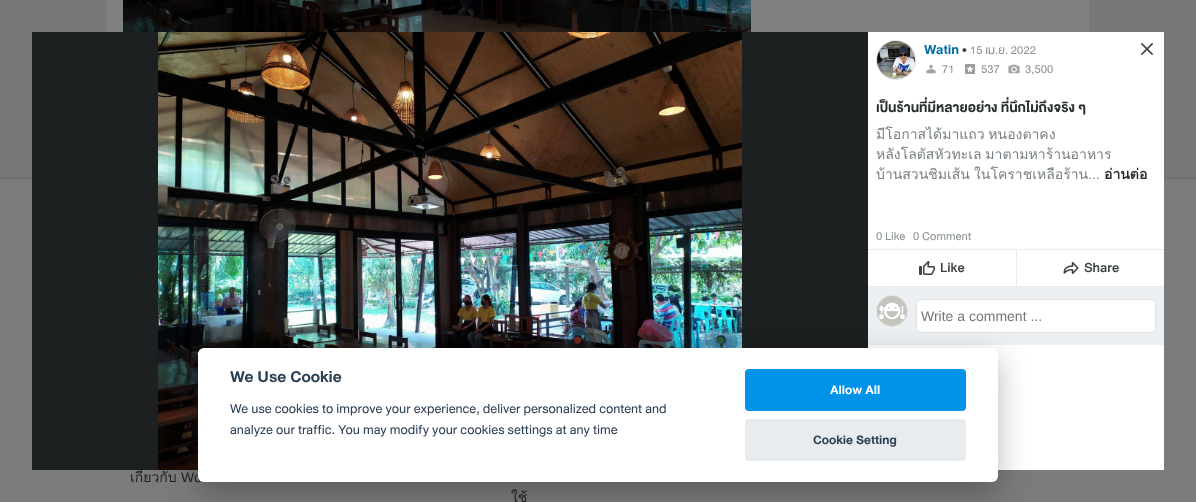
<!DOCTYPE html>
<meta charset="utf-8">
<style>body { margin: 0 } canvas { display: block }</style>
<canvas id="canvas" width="1196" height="502"></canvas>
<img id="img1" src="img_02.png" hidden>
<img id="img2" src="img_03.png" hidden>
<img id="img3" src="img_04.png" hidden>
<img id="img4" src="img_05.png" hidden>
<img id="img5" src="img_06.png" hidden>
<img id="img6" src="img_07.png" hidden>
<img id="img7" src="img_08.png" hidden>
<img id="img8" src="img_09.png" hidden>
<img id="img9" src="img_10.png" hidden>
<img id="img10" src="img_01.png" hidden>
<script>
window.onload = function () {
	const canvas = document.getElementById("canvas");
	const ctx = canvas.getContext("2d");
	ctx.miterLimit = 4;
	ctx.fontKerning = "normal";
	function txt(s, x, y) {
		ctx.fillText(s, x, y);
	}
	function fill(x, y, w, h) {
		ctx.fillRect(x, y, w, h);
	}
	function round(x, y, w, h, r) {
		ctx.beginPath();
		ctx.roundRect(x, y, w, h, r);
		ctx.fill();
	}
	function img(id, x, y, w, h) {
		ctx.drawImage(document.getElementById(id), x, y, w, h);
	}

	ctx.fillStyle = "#7A7B7C";
	fill(0, 0, 1196, 502);
	ctx.fillStyle = "#777879";
	fill(0, 0, 1196, 177);
	ctx.fillStyle = "#6F7172";
	fill(0, 177, 1196, 2);
	ctx.fillStyle = "#FFFFFF";
	fill(868, 32, 296, 438);
	ctx.fillStyle = "#EDF0F2";
	ctx.beginPath();
	ctx.arc(896, 60, 19.5, 0, Math.PI * 2);
	ctx.fill();
	ctx.strokeStyle = "#DEE2E4";
	ctx.stroke();
	img("img1", 877, 41, 38, 38);
	img("img2", 926, 64, 10, 10);
	img("img3", 965, 64, 10, 10);
	img("img4", 1008, 64, 12, 10);
	ctx.fillStyle = "#E9ECEE";
	fill(868, 249, 296, 38);
	ctx.fillStyle = "#FFFFFF";
	fill(868, 250, 148, 36);
	img("img5", 919, 261, 16, 14);
	fill(1017, 250, 147, 36);
	img("img6", 1063, 261, 16, 14);
	ctx.fillStyle = "#EDF0F2";
	fill(868, 287, 296, 58);
	ctx.beginPath();
	ctx.arc(892, 311, 15.5, 0, Math.PI * 2);
	ctx.stroke();
	img("img7", 877, 296, 30, 30);
	ctx.fillStyle = "#FFFFFF";
	ctx.beginPath();
	ctx.roundRect(916.5, 299.5, 239, 33, 3.5);
	ctx.fill();
	ctx.stroke();
	img("img8", 1141, 43, 12, 12);
	ctx.fillStyle = "#808080";
	fill(107, 0, 982, 32);
	img("img9", 123, 0, 628, 32);
	ctx.font = "bold 14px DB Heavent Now";
	ctx.fillStyle = "#0070A8";
	txt("Watin", 924, 54);
	ctx.font = "14px DB Heavent Now";
	ctx.fillStyle = "#3D4245";
	txt("•", 962, 54);
	ctx.font = "12px DB Heavent Now";
	ctx.fillStyle = "#8C9396";
	txt("15 เม.ย. 2022", 970, 54);
	txt("71", 942, 73);
	txt("537", 981, 73);
	txt("3,500", 1025, 73);
	ctx.font = "bold 14px DB Heavent Now";
	ctx.fillStyle = "#282D2E";
	txt("เป็นร้านที่มีหลายอย่าง ที่นึกไม่ถึงจริง ๆ", 876, 112);
	ctx.wordSpacing = "-1px";
	ctx.font = "14px Loma";
	ctx.fillStyle = "#787F83";
	txt("มีโอกาสได้มาแถว หนองตาคง", 876, 139);
	txt("หลังโลตัสหัวทะเล มาตามหาร้านอาหาร", 876, 159);
	ctx.wordSpacing = "0px";
	txt("บ้านสวนชิมเส้น", 876, 179);
	txt("ในโคราชเหลือร้าน", 974, 179);
	ctx.font = "14px Liberation Sans";
	txt("...", 1088, 179);
	ctx.font = "bold 14px Loma";
	ctx.fillStyle = "#282D2E";
	txt("อ่านต่อ", 1104, 179);
	ctx.font = "12px DB Heavent Now";
	ctx.fillStyle = "#8C9396";
	txt("0 Like", 876, 240);
	txt("0 Comment", 913, 240);
	ctx.font = "500 14px DB Heavent Now";
	ctx.fillStyle = "#3D4245";
	txt("Like", 940, 272);
	txt("Share", 1084, 272);
	ctx.font = "14px Liberation Sans";
	ctx.fillStyle = "#757575";
	txt("Write a comment ...", 921, 321);
	ctx.font = "14px Loma";
	ctx.fillStyle = "#1F2123";
	txt("เกี่ยวกับ", 130, 482);
	ctx.fillStyle = "#1D2021";
	fill(32, 32, 836, 438);
	img("img10", 158, 32, 584, 438);
	ctx.font = "14px Liberation Sans";
	ctx.fillStyle = "#1F2123";
	txt("Wo", 181, 482);
	ctx.font = "14px Loma";
	txt("ใช้", 511, 502);
	ctx.fillStyle = "rgba(2, 2, 3, 0.28)";
	ctx.filter = "blur(15px)";
	ctx.beginPath();
	ctx.roundRect(198, 358, 800, 134, 6);
	ctx.fill();
	ctx.filter = "none";
	ctx.fillStyle = "#FFFFFF";
	round(198, 348, 800, 134, 6);
	ctx.font = "bold 16.75px DB Heavent Now";
	ctx.fillStyle = "#2D4156";
	txt("We Use Cookie", 230, 382);
	ctx.font = "13.6px DB Heavent Now";
	txt("We use cookies to improve your experience, deliver personalized content and", 230, 413);
	txt("analyze our traffic. You may modify your cookies settings at any time", 230, 434);
	ctx.fillStyle = "#0093E8";
	round(745, 369, 221, 42, 4);
	ctx.font = "bold 13px DB Heavent Now";
	ctx.fillStyle = "#FFFFFF";
	txt("Allow All", 830, 394);
	ctx.fillStyle = "#E9ECEE";
	round(745, 419, 221, 42, 4);
	ctx.fillStyle = "#2D4156";
	txt("Cookie Setting", 813, 444);
};
</script>
